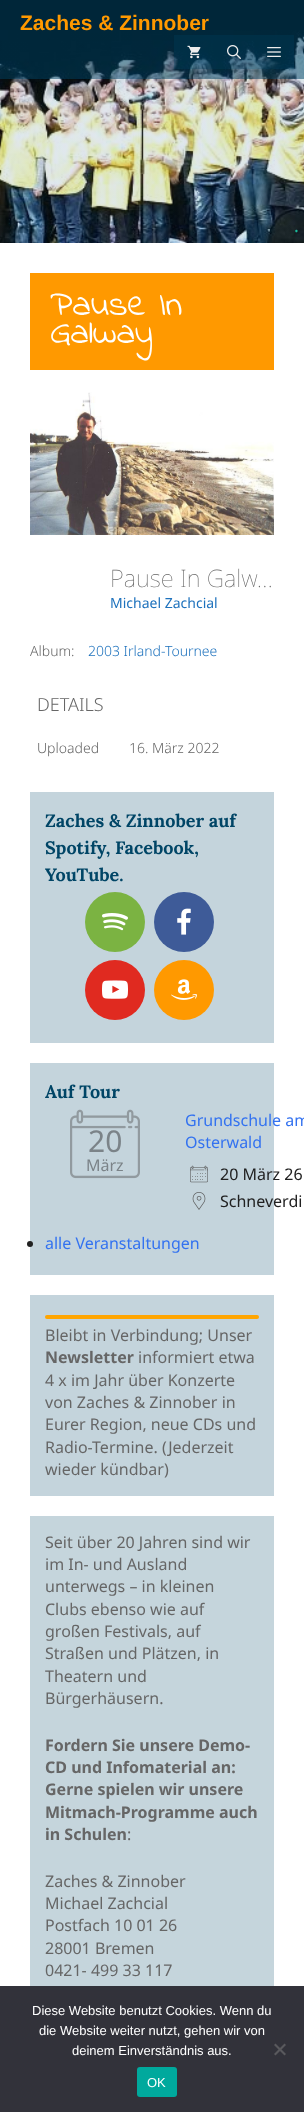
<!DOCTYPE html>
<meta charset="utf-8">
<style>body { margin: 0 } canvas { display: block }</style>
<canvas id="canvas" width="304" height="2112"></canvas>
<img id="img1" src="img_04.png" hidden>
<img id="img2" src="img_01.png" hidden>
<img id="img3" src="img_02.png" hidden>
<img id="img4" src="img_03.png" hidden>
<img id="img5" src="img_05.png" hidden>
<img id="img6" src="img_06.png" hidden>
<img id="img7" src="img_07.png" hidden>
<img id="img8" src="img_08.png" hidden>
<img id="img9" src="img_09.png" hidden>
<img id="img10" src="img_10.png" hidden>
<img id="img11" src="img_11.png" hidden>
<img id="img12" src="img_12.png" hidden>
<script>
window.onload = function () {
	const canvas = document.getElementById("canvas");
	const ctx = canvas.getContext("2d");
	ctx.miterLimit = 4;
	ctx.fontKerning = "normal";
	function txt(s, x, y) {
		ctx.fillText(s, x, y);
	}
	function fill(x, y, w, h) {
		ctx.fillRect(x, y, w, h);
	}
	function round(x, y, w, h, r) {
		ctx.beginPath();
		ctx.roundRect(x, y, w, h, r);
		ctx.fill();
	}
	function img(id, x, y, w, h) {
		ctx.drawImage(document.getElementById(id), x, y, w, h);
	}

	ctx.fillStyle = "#00080C";
	fill(0, 0, 304, 2112);
	img("img1", 0, 30, 304, 213);
	ctx.fillStyle = "rgba(0, 69, 102, 0.51)";
	fill(0, 0, 304, 79);
	ctx.fillStyle = "rgba(0, 69, 102, 0.28)";
	fill(174, 35, 120, 34);
	img("img2", 187, 45, 14, 14);
	img("img3", 227, 45, 14, 14);
	img("img4", 267, 47, 14, 10);
	ctx.fillStyle = "#FFFFFF";
	fill(0, 243, 304, 1743);
	ctx.fillStyle = "#FF9900";
	fill(30, 273, 244, 97);
	img("img5", 30, 392, 244, 143);
	ctx.fillStyle = "#C4D4DC";
	fill(30, 792, 244, 251);
	ctx.fillStyle = "#7BB342";
	ctx.beginPath();
	ctx.arc(115, 922, 30, 0, Math.PI * 2);
	ctx.fill();
	img("img6", 102, 913, 26, 18);
	ctx.fillStyle = "#3E5B98";
	ctx.beginPath();
	ctx.arc(184, 922, 30, 0, Math.PI * 2);
	ctx.fill();
	img("img7", 177, 908, 14, 27);
	ctx.fillStyle = "#E02A20";
	ctx.beginPath();
	ctx.arc(115, 990, 30, 0, Math.PI * 2);
	ctx.fill();
	img("img8", 102, 980, 26, 19);
	ctx.fillStyle = "#FF9900";
	ctx.beginPath();
	ctx.arc(184, 990, 30, 0, Math.PI * 2);
	ctx.fill();
	img("img9", 171, 979, 26, 21);
	ctx.fillStyle = "#C4D4DC";
	fill(30, 1063, 244, 212);
	img("img10", 70, 1109, 70, 70);
	img("img11", 190, 1165, 18, 18);
	img("img12", 192, 1192, 14, 18);
	ctx.fillStyle = "#212121";
	ctx.beginPath();
	ctx.arc(30, 1244, 3, 0, Math.PI * 2);
	ctx.fill();
	ctx.fillStyle = "#C4D4DC";
	fill(30, 1295, 244, 201);
	ctx.fillStyle = "#FFA500";
	round(45, 1315, 214, 4, 2);
	ctx.fillStyle = "#C5D5DC";
	fill(30, 1516, 244, 470);
	ctx.fillStyle = "#32323A";
	fill(0, 1986, 304, 126);
	ctx.fillStyle = "#59595D";
	ctx.beginPath();
	ctx.moveTo(284.5, 2043.5);
	ctx.lineTo(286, 2045);
	ctx.lineTo(275.5, 2055.5);
	ctx.lineTo(274, 2054);
	ctx.closePath();
	ctx.fill();
	ctx.beginPath();
	ctx.moveTo(274, 2045);
	ctx.lineTo(275.5, 2043.5);
	ctx.lineTo(286, 2054);
	ctx.lineTo(284.5, 2055.5);
	ctx.closePath();
	ctx.fill();
	ctx.fillStyle = "#00A99D";
	round(137, 2067, 40, 30, 3);
	ctx.font = "bold 21px Liberation Sans";
	ctx.fillStyle = "#FF9900";
	txt("Zaches & Zinnober", 20, 30);
	ctx.font = "18px Noto Sans";
	ctx.fillStyle = "#1ABC9C";
	txt(".", 294, 232);
	ctx.font = "36px Indie Flower";
	ctx.fillStyle = "#FFFFFF";
	txt("Pause In", 50, 315);
	txt("Galway", 50, 343);
	ctx.font = "100 24px Noto Sans";
	ctx.fillStyle = "#666666";
	txt("Pause In Galw…", 110, 587);
	ctx.font = "14px Noto Sans";
	ctx.fillStyle = "#1E72BD";
	txt("Michael Zachcial", 110, 608);
	ctx.font = "300 14px Noto Sans";
	ctx.fillStyle = "#666666";
	txt("Album:", 30, 656);
	ctx.fillStyle = "#1E72BD";
	txt("2003 Irland-Tournee", 88, 656);
	ctx.font = "300 18px Noto Sans";
	ctx.fillStyle = "#666666";
	txt("DETAILS", 37, 711);
	ctx.font = "300 14px Noto Sans";
	txt("Uploaded", 37, 753);
	txt("16. März 2022", 129, 753);
	ctx.font = "bold 18px Lora";
	ctx.fillStyle = "#004566";
	txt("Zaches & Zinnober auf", 45, 827);
	txt("Spotify, Facebook,", 45, 854);
	txt("YouTube.", 45, 881);
	txt("Auf Tour", 45, 1098);
	ctx.font = "30px Noto Sans";
	ctx.fillStyle = "#7B8388";
	txt("20", 88, 1152);
	ctx.font = "16px Noto Sans";
	txt("März", 86, 1171);
	ctx.fillStyle = "#3372F0";
	txt("Grundschule am", 185, 1126);
	txt("Osterwald", 185, 1148);
	ctx.fillStyle = "#212121";
	txt("20 März 26", 220, 1180);
	txt("Schneverdi", 220, 1207);
	ctx.fillStyle = "#3372F0";
	txt("alle Veranstaltungen", 45, 1249);
	ctx.fillStyle = "#666666";
	txt("Bleibt in Verbindung; Unser", 45, 1341);
	ctx.font = "bold 16px Noto Sans";
	txt("Newsletter", 45, 1363);
	ctx.font = "16px Noto Sans";
	txt("informiert etwa", 138, 1363);
	txt("4 x im Jahr über Konzerte", 45, 1386);
	txt("von Zaches & Zinnober in", 45, 1408);
	txt("Eurer Region, neue CDs und", 45, 1430);
	txt("Radio-Termine. (Jederzeit", 45, 1453);
	txt("wieder kündbar)", 45, 1475);
	txt("Seit über 20 Jahren sind wir", 45, 1548);
	txt("im In- und Ausland", 45, 1570);
	txt("unterwegs – in kleinen", 45, 1592);
	txt("Clubs ebenso wie auf", 45, 1615);
	txt("großen Festivals, auf", 45, 1637);
	txt("Straßen und Plätzen, in", 45, 1659);
	txt("Theatern und", 45, 1682);
	txt("Bürgerhäusern.", 45, 1704);
	ctx.font = "bold 16px Noto Sans";
	txt("Fordern Sie unsere Demo-", 45, 1751);
	txt("CD und Infomaterial an:", 45, 1773);
	txt("Gerne spielen wir unsere", 45, 1795);
	txt("Mitmach-Programme auch", 45, 1818);
	txt("in Schulen", 45, 1840);
	ctx.font = "16px Noto Sans";
	txt(":", 127, 1840);
	txt("Zaches & Zinnober", 45, 1887);
	txt("Michael Zachcial", 45, 1909);
	txt("Postfach 10 01 26", 45, 1931);
	txt("28001 Bremen", 45, 1954);
	txt("0421- 499 33 117", 45, 1976);
	ctx.font = "13px Liberation Sans";
	ctx.fillStyle = "#FFFFFF";
	txt("Diese Website benutzt Cookies. Wenn du", 32, 2015);
	txt("die Website weiter nutzt, gehen wir von", 39, 2035);
	txt("deinem Einverständnis aus.", 72, 2055);
	txt("OK", 147, 2087);
};
</script>
